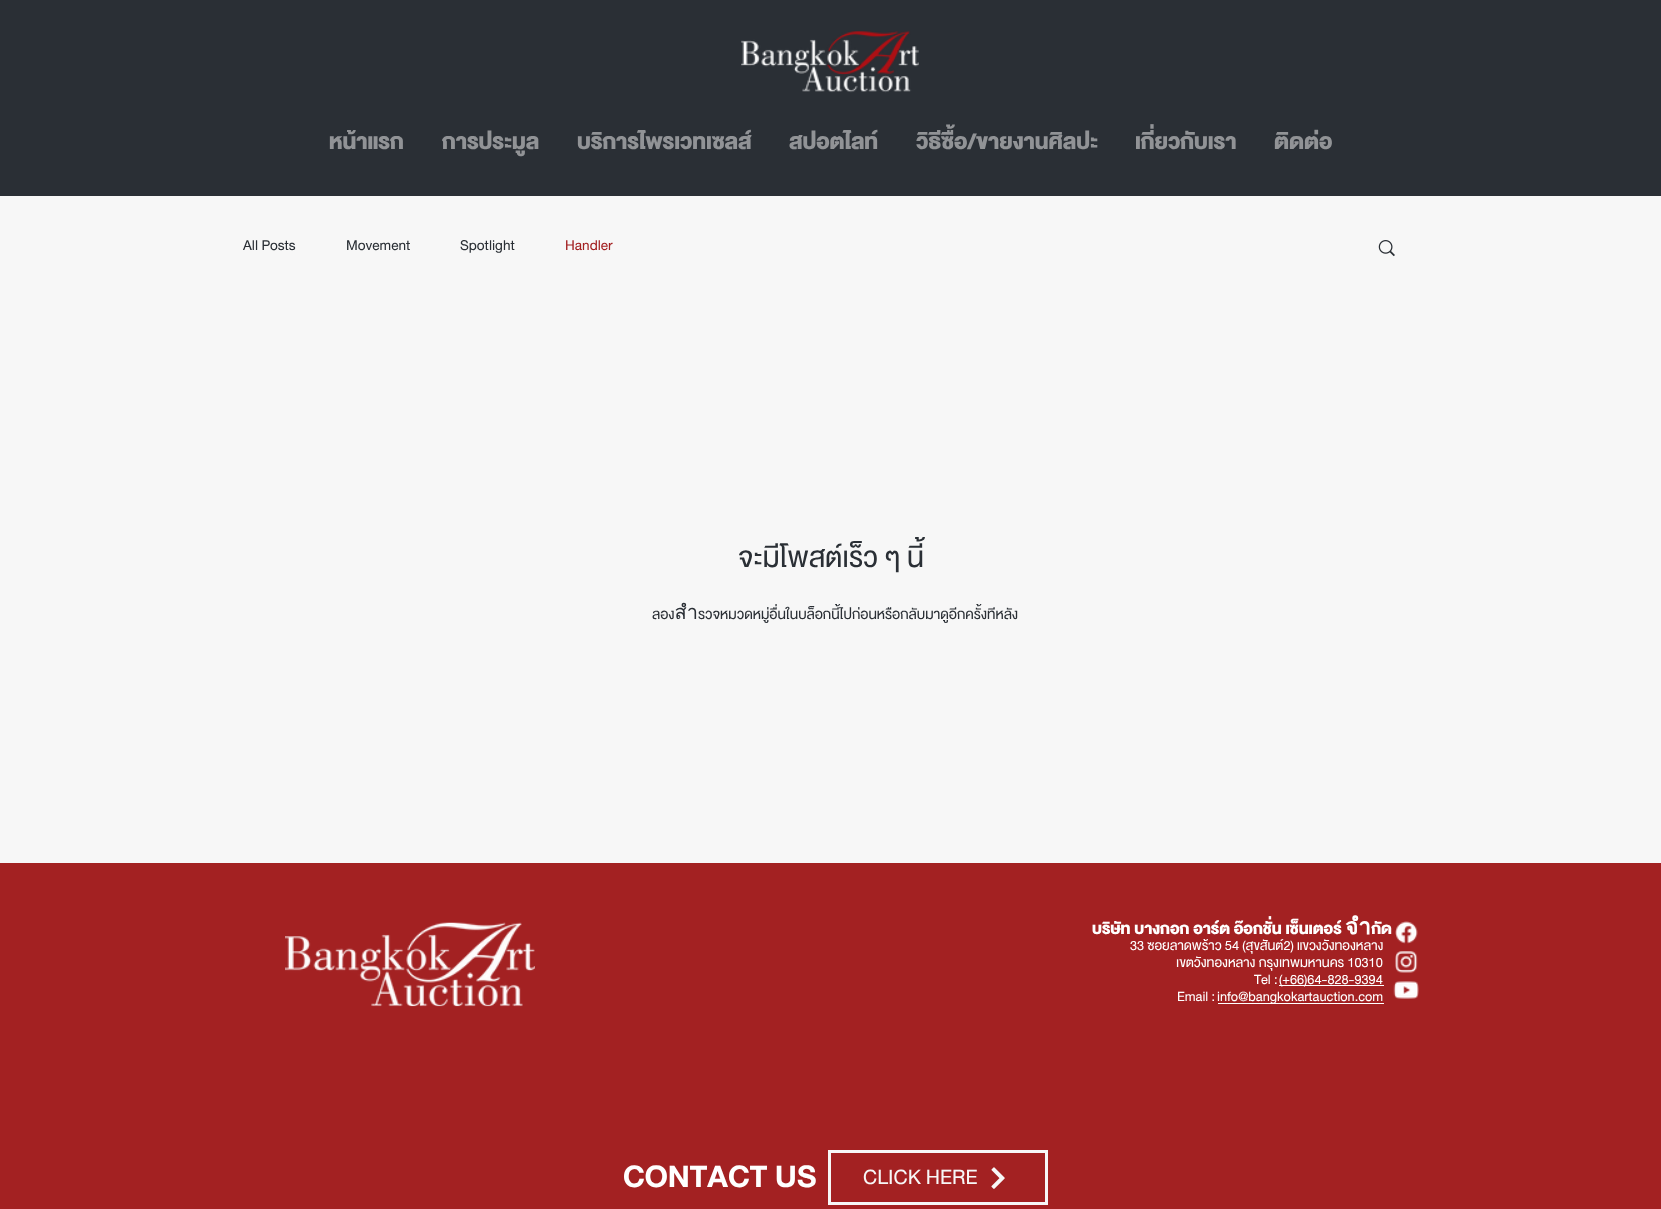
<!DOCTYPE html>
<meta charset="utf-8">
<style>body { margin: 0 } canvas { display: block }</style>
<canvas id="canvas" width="1661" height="1209"></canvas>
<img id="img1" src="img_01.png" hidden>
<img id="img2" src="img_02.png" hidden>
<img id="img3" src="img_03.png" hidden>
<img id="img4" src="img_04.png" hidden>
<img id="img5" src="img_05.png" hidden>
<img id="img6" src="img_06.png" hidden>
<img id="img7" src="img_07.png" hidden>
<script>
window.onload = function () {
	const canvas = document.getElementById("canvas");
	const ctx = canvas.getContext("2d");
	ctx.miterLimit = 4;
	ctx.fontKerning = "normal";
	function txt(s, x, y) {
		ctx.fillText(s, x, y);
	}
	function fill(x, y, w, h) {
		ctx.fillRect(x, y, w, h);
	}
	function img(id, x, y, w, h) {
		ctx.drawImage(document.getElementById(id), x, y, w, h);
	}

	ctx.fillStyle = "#F7F7F7";
	fill(0, 0, 1661, 1209);
	ctx.fillStyle = "#2A2F35";
	fill(0, 0, 1661, 196);
	img("img1", 741, 31, 178, 62);
	img("img2", 1378, 240, 17, 17);
	ctx.fillStyle = "#A32122";
	fill(0, 863, 1661, 346);
	img("img3", 285, 922, 250, 85);
	ctx.fillStyle = "#FFFFFF";
	fill(1279, 985, 105, 1);
	fill(1218, 1003, 166, 1);
	img("img4", 1395, 921, 23, 23);
	img("img5", 1395, 951, 23, 22);
	img("img6", 1393, 981, 26, 18);
	ctx.strokeStyle = "#F7F7F7";
	ctx.lineWidth = 3;
	ctx.strokeRect(829.5, 1151.5, 217, 52);
	img("img7", 991, 1167, 14, 22);
	ctx.font = "900 31.25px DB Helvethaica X";
	ctx.fillStyle = "#919396";
	txt("หน้าแรก", 329, 149);
	txt("การประมูล", 442, 149);
	txt("บริการไพรเวทเซลส์", 577, 149);
	txt("สปอตไลท์", 789, 149);
	txt("วิธีซื้อ/ขายงานศิลปะ", 916, 149);
	txt("เกี่ยวกับเรา", 1135, 149);
	txt("ติดต่อ", 1274, 149);
	ctx.font = "20px DB Helvethaica X";
	ctx.fillStyle = "#2A2F35";
	txt("All Posts", 243, 250);
	txt("Movement", 346, 250);
	txt("Spotlight", 460, 250);
	ctx.fillStyle = "#A32122";
	txt("Handler", 565, 250);
	ctx.font = "40px DB Helvethaica X";
	ctx.fillStyle = "#2A2F35";
	txt("จะมีโพสต์เร็ว ๆ นี้", 738, 567);
	ctx.font = "20px DB Helvethaica X";
	txt("ลองสำรวจหมวดหมู่อื่นในบล็อกนี้ไปก่อนหรือกลับมาดูอีกครั้งทีหลัง", 652, 619);
	ctx.font = "900 22.5px DB Helvethaica X";
	ctx.fillStyle = "#FFFFFF";
	txt("บริษัท บางกอก อาร์ต อ๊อกชั่น เซ็นเตอร์ จำกัด", 1092, 934);
	ctx.font = "18.75px DB Helvethaica X";
	txt("33 ซอยลาดพร้าว 54 (สุขสันต์2) แขวงวังทองหลาง", 1130, 950);
	txt("เขตวังทองหลาง กรุงเทพมหานคร 10310", 1176, 967);
	txt("Tel :", 1254, 984);
	txt("(+66)64-828-9394", 1279, 984);
	txt("Email :", 1177, 1001);
	txt("info@bangkokartauction.com", 1217, 1001);
	ctx.font = "bold 43.75px DB Helvethaica X";
	txt("CONTACT US", 623, 1187);
	ctx.font = "29px DB Helvethaica X";
	ctx.fillStyle = "#F7F7F7";
	txt("CLICK HERE", 863, 1184);
};
</script>
